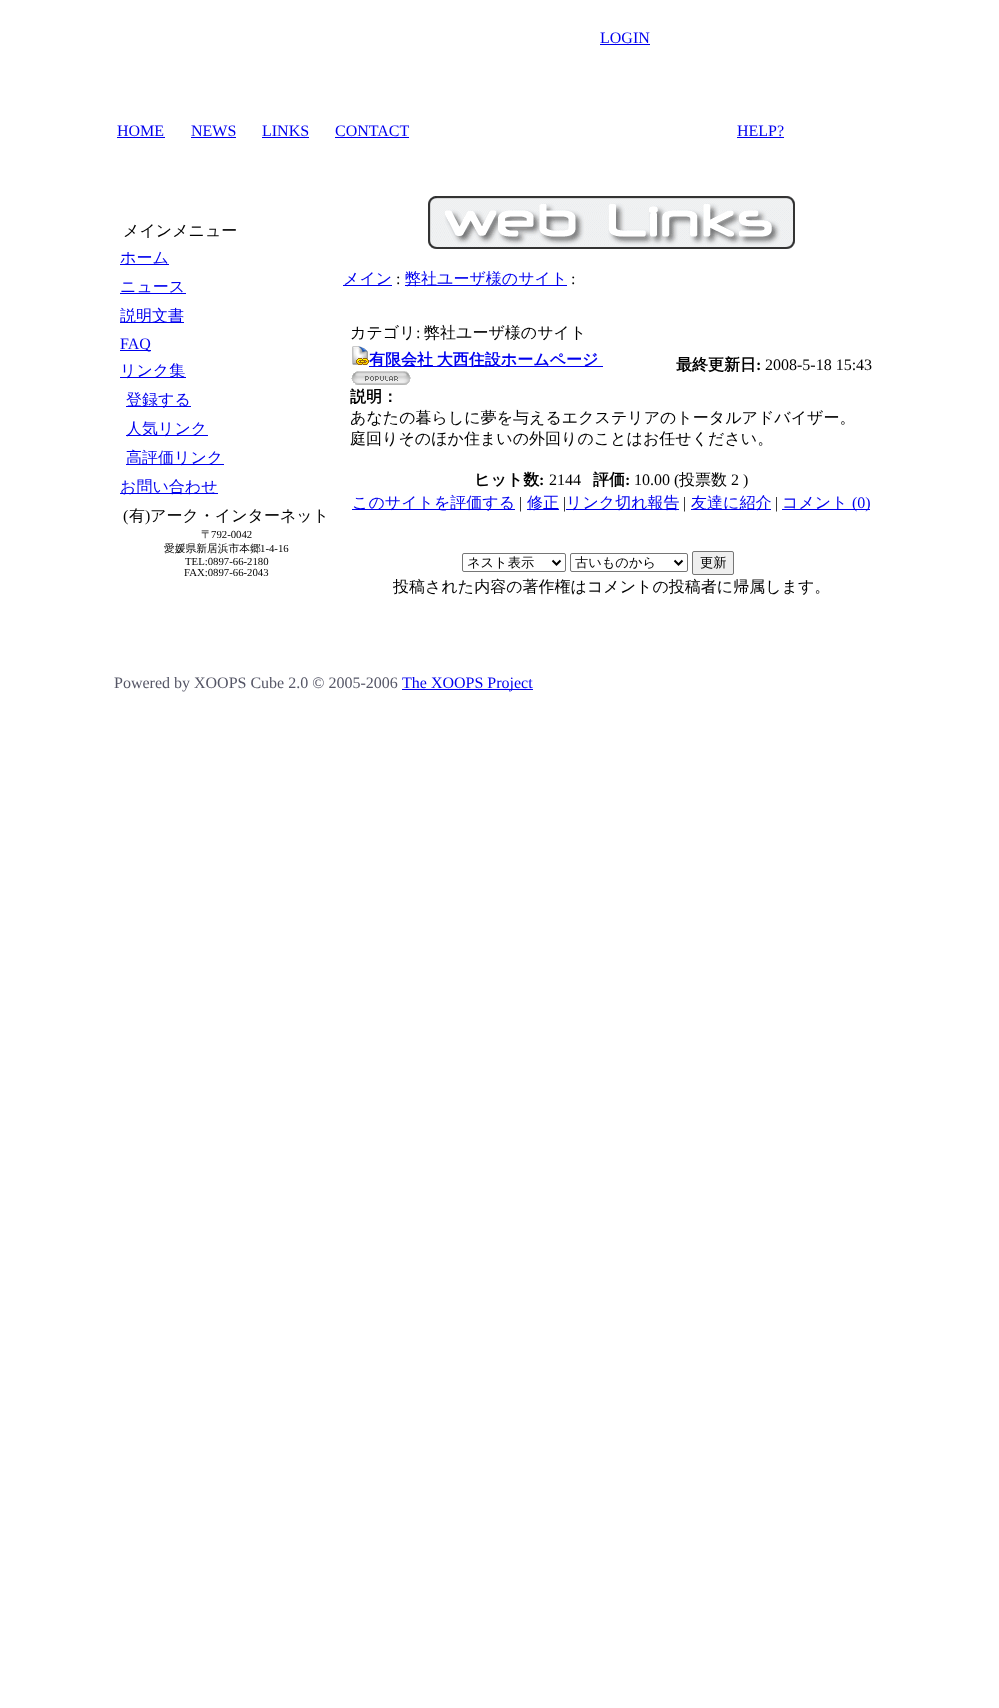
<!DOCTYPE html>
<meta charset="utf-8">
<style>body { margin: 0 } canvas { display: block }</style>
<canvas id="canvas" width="999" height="1708"></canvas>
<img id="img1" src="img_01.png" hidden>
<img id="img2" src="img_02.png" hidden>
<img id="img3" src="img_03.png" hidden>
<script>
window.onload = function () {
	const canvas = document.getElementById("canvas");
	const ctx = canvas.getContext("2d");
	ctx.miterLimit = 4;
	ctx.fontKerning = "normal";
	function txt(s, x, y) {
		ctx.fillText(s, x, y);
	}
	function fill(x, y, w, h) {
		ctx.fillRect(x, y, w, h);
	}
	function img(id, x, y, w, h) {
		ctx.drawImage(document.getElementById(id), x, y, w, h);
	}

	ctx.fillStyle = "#FFFFFF";
	fill(0, 0, 999, 1708);
	ctx.fillStyle = "#0000EE";
	fill(600, 44, 50, 1);
	fill(117, 137, 48, 1);
	fill(191, 137, 45, 1);
	fill(262, 137, 47, 1);
	fill(335, 137, 74, 1);
	fill(737, 137, 47, 1);
	fill(120, 264, 49, 1);
	fill(120, 293, 66, 1);
	fill(120, 322, 64, 1);
	fill(120, 350, 31, 1);
	fill(120, 377, 66, 1);
	fill(126, 406, 65, 1);
	fill(126, 435, 82, 1);
	fill(126, 464, 98, 1);
	fill(120, 493, 98, 1);
	img("img1", 428, 196, 367, 53);
	fill(343, 285, 49, 1);
	fill(405, 285, 162, 1);
	img("img2", 352, 346, 17, 19);
	fill(369, 366, 234, 1);
	img("img3", 351, 371, 60, 14);
	fill(352, 509, 163, 1);
	fill(527, 509, 32, 1);
	fill(566, 509, 113, 1);
	fill(691, 509, 80, 1);
	fill(782, 509, 88, 1);
	ctx.beginPath();
	ctx.roundRect(462.5, 553.5, 103, 18, 1.5);
	ctx.strokeStyle = "#767676";
	ctx.stroke();
	ctx.beginPath();
	ctx.moveTo(552.5, 560.5);
	ctx.lineTo(556.5, 564.5);
	ctx.lineTo(560.5, 560.5);
	ctx.strokeStyle = "#000000";
	ctx.lineWidth = 2;
	ctx.stroke();
	ctx.beginPath();
	ctx.roundRect(570.5, 553.5, 117, 18, 1.5);
	ctx.strokeStyle = "#767676";
	ctx.lineWidth = 1;
	ctx.stroke();
	ctx.beginPath();
	ctx.moveTo(674.5, 560.5);
	ctx.lineTo(678.5, 564.5);
	ctx.lineTo(682.5, 560.5);
	ctx.strokeStyle = "#000000";
	ctx.lineWidth = 2;
	ctx.stroke();
	ctx.fillStyle = "#EFEFEF";
	ctx.beginPath();
	ctx.roundRect(692.5, 551.5, 41, 23, 1.5);
	ctx.fill();
	ctx.strokeStyle = "#767676";
	ctx.lineWidth = 1;
	ctx.stroke();
	ctx.fillStyle = "#0000EE";
	fill(402, 689, 131, 1);
	ctx.font = "16px Liberation Serif";
	txt("LOGIN", 600, 43);
	txt("HOME", 117, 136);
	txt("NEWS", 191, 136);
	txt("LINKS", 262, 136);
	txt("CONTACT", 335, 136);
	txt("HELP?", 737, 136);
	ctx.font = "500 16px WenQuanYi Zen Hei";
	ctx.fillStyle = "#000000";
	txt("メインメニュー", 123, 236);
	ctx.fillStyle = "#0000EE";
	txt("ホーム", 120, 263);
	txt("ニュース", 120, 292);
	txt("説明文書", 120, 321);
	ctx.font = "16px Liberation Serif";
	txt("FAQ", 120, 349);
	ctx.font = "500 16px WenQuanYi Zen Hei";
	txt("リンク集", 120, 376);
	txt("登録する", 126, 405);
	txt("人気リンク", 126, 434);
	txt("高評価リンク", 126, 463);
	txt("お問い合わせ", 120, 492);
	ctx.font = "16px Liberation Serif";
	ctx.fillStyle = "#000000";
	txt("(", 123, 521);
	ctx.font = "500 16px WenQuanYi Zen Hei";
	txt("有", 129, 521);
	ctx.font = "16px Liberation Serif";
	txt(")", 145, 521);
	ctx.font = "500 16px WenQuanYi Zen Hei";
	txt("アーク・インターネット", 150, 521);
	ctx.font = "500 10.75px WenQuanYi Zen Hei";
	txt("〒", 201, 538);
	ctx.font = "10.75px Liberation Serif";
	txt("792-0042", 211, 538);
	ctx.font = "500 10.75px WenQuanYi Zen Hei";
	txt("愛媛県新居浜市本郷", 164, 552);
	ctx.font = "10.75px Liberation Serif";
	txt("1-4-16", 260, 552);
	txt("TEL:0897-66-2180", 185, 565);
	txt("FAX:0897-66-2043", 184, 576);
	ctx.font = "500 16px WenQuanYi Zen Hei";
	ctx.fillStyle = "#0000EE";
	txt("メイン", 343, 284);
	ctx.font = "16px Liberation Serif";
	ctx.fillStyle = "#000000";
	txt(":", 396, 284);
	ctx.font = "500 16px WenQuanYi Zen Hei";
	ctx.fillStyle = "#0000EE";
	txt("弊社ユーザ様のサイト", 405, 284);
	ctx.font = "16px Liberation Serif";
	ctx.fillStyle = "#000000";
	txt(":", 571, 284);
	ctx.font = "500 16px WenQuanYi Zen Hei";
	txt("カテゴリ", 350, 338);
	ctx.font = "16px Liberation Serif";
	txt(":", 416, 338);
	ctx.font = "500 16px WenQuanYi Zen Hei";
	txt("弊社ユーザ様のサイト", 424, 338);
	ctx.wordSpacing = "-1px";
	ctx.font = "bold 16px WenQuanYi Zen Hei";
	ctx.fillStyle = "#0000EE";
	txt("有限会社 大西住設ホームページ", 369, 365);
	ctx.wordSpacing = "0px";
	ctx.fillStyle = "#000000";
	txt("最終更新日", 676, 370);
	ctx.font = "bold 16px Liberation Serif";
	txt(":", 756, 370);
	ctx.font = "16px Liberation Serif";
	txt("2008-5-18 15:43", 765, 370);
	ctx.font = "bold 16px WenQuanYi Zen Hei";
	txt("説明：", 350, 402);
	ctx.font = "500 16px WenQuanYi Zen Hei";
	txt("あなたの暮らしに夢を与えるエクステリアのトータルアドバイザー。", 350, 423);
	txt("庭回りそのほか住まいの外回りのことはお任せください。", 350, 444);
	ctx.font = "bold 16px WenQuanYi Zen Hei";
	txt("ヒット数", 474, 485);
	ctx.font = "bold 16px Liberation Serif";
	txt(":", 539, 485);
	ctx.font = "16px Liberation Serif";
	txt("2144", 549, 485);
	ctx.font = "bold 16px WenQuanYi Zen Hei";
	txt("評価", 593, 485);
	ctx.font = "bold 16px Liberation Serif";
	txt(":", 625, 485);
	ctx.font = "16px Liberation Serif";
	txt("10.00 (", 634, 485);
	ctx.font = "500 16px WenQuanYi Zen Hei";
	txt("投票数", 679, 485);
	ctx.font = "16px Liberation Serif";
	txt("2 )", 731, 485);
	ctx.font = "500 16px WenQuanYi Zen Hei";
	ctx.fillStyle = "#0000EE";
	txt("このサイトを評価する", 352, 508);
	ctx.font = "16px Liberation Serif";
	ctx.fillStyle = "#000000";
	txt("|", 519, 508);
	ctx.font = "500 16px WenQuanYi Zen Hei";
	ctx.fillStyle = "#0000EE";
	txt("修正", 527, 508);
	ctx.font = "16px Liberation Serif";
	ctx.fillStyle = "#000000";
	txt("|", 563, 508);
	ctx.font = "500 16px WenQuanYi Zen Hei";
	ctx.fillStyle = "#0000EE";
	txt("リンク切れ報告", 566, 508);
	ctx.font = "16px Liberation Serif";
	ctx.fillStyle = "#000000";
	txt("|", 683, 508);
	ctx.font = "500 16px WenQuanYi Zen Hei";
	ctx.fillStyle = "#0000EE";
	txt("友達に紹介", 691, 508);
	ctx.font = "16px Liberation Serif";
	ctx.fillStyle = "#000000";
	txt("|", 775, 508);
	ctx.font = "500 16px WenQuanYi Zen Hei";
	ctx.fillStyle = "#0000EE";
	txt("コメント", 782, 508);
	ctx.font = "16px Liberation Serif";
	txt("(0)", 852, 508);
	ctx.font = "500 13.25px WenQuanYi Zen Hei";
	ctx.fillStyle = "#000000";
	txt("ネスト表示", 467, 567);
	txt("古いものから", 575, 567);
	txt("更新", 700, 567);
	ctx.font = "500 16px WenQuanYi Zen Hei";
	txt("投稿された内容の著作権はコメントの投稿者に帰属します。", 393, 592);
	ctx.font = "16px Liberation Serif";
	ctx.fillStyle = "#555666";
	txt("Powered by XOOPS Cube 2.0 © 2005-2006", 114, 688);
	ctx.fillStyle = "#0000EE";
	txt("The XOOPS Project", 402, 688);
};
</script>
